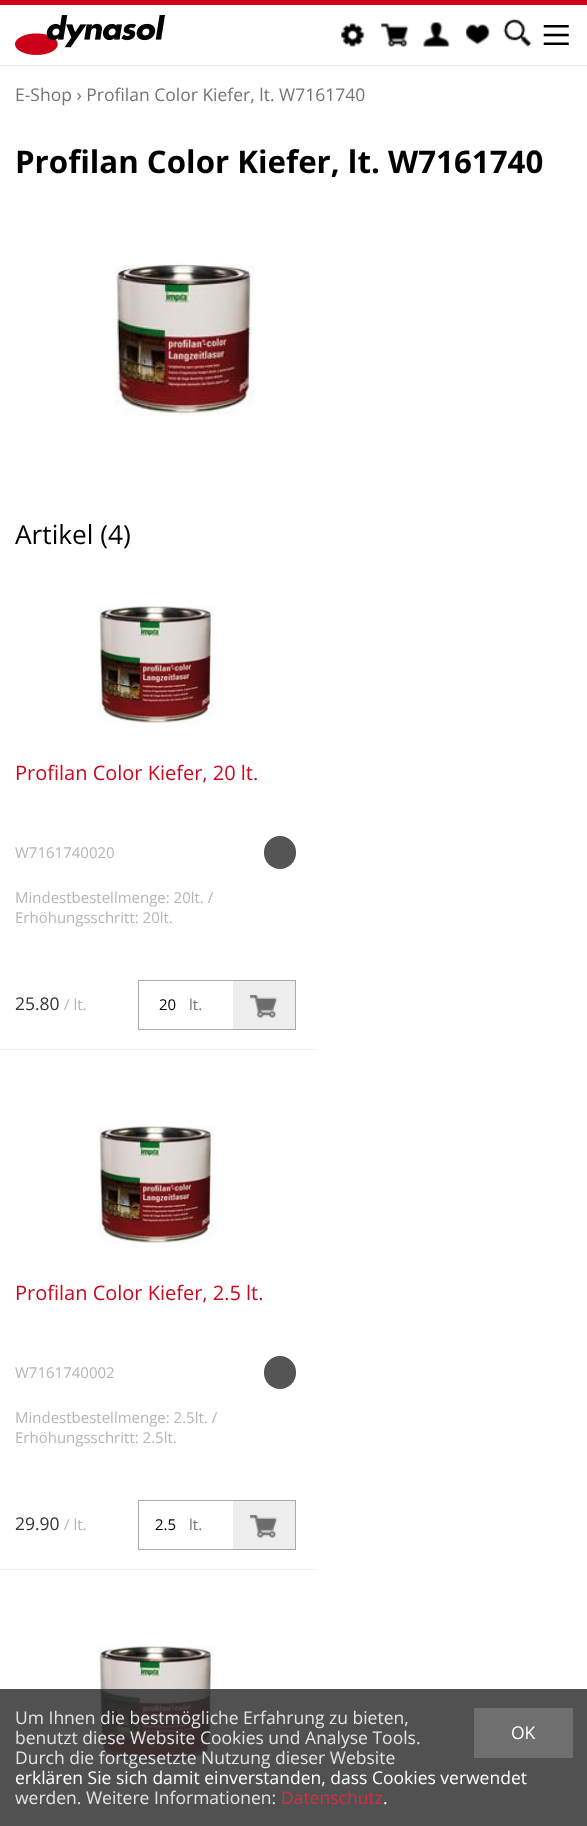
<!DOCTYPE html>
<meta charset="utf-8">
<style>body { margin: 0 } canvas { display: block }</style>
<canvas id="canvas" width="587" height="1826"></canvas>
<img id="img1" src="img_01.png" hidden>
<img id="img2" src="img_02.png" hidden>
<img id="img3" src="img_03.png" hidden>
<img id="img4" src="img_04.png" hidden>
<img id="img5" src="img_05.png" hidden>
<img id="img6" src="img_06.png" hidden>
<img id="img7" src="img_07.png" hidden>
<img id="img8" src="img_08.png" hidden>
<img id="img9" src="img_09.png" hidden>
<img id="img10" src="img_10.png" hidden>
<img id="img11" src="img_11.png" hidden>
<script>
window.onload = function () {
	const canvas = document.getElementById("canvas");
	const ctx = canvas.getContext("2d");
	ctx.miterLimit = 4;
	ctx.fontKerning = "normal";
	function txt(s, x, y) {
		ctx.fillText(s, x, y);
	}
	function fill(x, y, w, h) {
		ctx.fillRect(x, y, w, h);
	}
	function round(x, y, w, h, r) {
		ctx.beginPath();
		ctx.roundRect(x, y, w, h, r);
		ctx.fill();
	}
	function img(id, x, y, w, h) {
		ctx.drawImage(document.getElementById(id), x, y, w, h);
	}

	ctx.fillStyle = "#FFFFFF";
	fill(0, 0, 587, 1826);
	ctx.fillStyle = "#CC0018";
	fill(0, 0, 587, 5);
	ctx.fillStyle = "#E5E5E5";
	fill(0, 65, 587, 1);
	img("img1", 15, 15, 150, 40);
	img("img2", 341, 23, 24, 24);
	img("img3", 381, 23, 28, 24);
	img("img4", 423, 22, 27, 25);
	img("img5", 466, 24, 24, 21);
	img("img6", 503, 18, 29, 29);
	img("img7", 543, 25, 26, 20);
	img("img8", 115, 263, 140, 152);
	ctx.fillStyle = "#EEEEEE";
	fill(0, 1049, 315, 1);
	img("img9", 98, 605, 117, 119);
	ctx.fillStyle = "#555555";
	round(264, 836, 32, 33, 16);
	ctx.strokeStyle = "#AAAAAA";
	ctx.strokeRect(138.5, 980.5, 157, 49);
	ctx.fillStyle = "#EEEEEE";
	fill(233, 981, 62, 48);
	img("img10", 250, 994, 27, 24);
	fill(0, 1569, 315, 1);
	img("img11", 98, 1125, 117, 119);
	ctx.fillStyle = "#555555";
	round(264, 1356, 32, 33, 16);
	ctx.strokeRect(138.5, 1500.5, 157, 49);
	ctx.fillStyle = "#EEEEEE";
	fill(233, 1501, 62, 48);
	img("img10", 250, 1514, 27, 24);
	img("img9", 98, 1645, 117, 119);
	ctx.fillStyle = "rgba(51, 51, 51, 0.85)";
	fill(0, 1689, 587, 137);
	ctx.fillStyle = "#6F6F6F";
	fill(474, 1708, 99, 50);
	ctx.font = "17.5px Open Sans";
	ctx.fillStyle = "#747474";
	txt("E-Shop › Profilan Color Kiefer, lt. W7161740", 15, 101);
	ctx.font = "bold 31.25px Open Sans";
	ctx.fillStyle = "#000000";
	txt("Profilan Color Kiefer, lt. W7161740", 15, 173);
	ctx.font = "26.25px Open Sans";
	txt("Artikel (4)", 15, 544);
	ctx.font = "20px Open Sans";
	ctx.fillStyle = "#CC071E";
	txt("Profilan Color Kiefer, 20 lt.", 15, 780);
	ctx.font = "15px Open Sans";
	ctx.fillStyle = "#B5B5B5";
	txt("W7161740020", 15, 858);
	txt("Mindestbestellmenge: 20lt. /", 15, 903);
	txt("Erhöhungsschritt: 20lt.", 15, 923);
	ctx.font = "17.5px Open Sans";
	ctx.fillStyle = "#333333";
	txt("25.80", 15, 1010);
	ctx.font = "15px Open Sans";
	ctx.fillStyle = "#B5B5B5";
	txt("/ lt.", 64, 1010);
	ctx.fillStyle = "#000000";
	txt("20", 159, 1010);
	ctx.fillStyle = "#747474";
	txt("lt.", 189, 1010);
	ctx.font = "20px Open Sans";
	ctx.fillStyle = "#CC071E";
	txt("Profilan Color Kiefer, 2.5 lt.", 15, 1300);
	ctx.font = "15px Open Sans";
	ctx.fillStyle = "#B5B5B5";
	txt("W7161740002", 15, 1378);
	txt("Mindestbestellmenge: 2.5lt. /", 15, 1423);
	txt("Erhöhungsschritt: 2.5lt.", 15, 1443);
	ctx.font = "17.5px Open Sans";
	ctx.fillStyle = "#333333";
	txt("29.90", 15, 1530);
	ctx.font = "15px Open Sans";
	ctx.fillStyle = "#B5B5B5";
	txt("/ lt.", 64, 1530);
	ctx.fillStyle = "#000000";
	txt("2.5", 155, 1530);
	ctx.fillStyle = "#747474";
	txt("lt.", 189, 1530);
	ctx.font = "17.5px Open Sans";
	ctx.fillStyle = "#E4E3E3";
	txt("Um Ihnen die bestmögliche Erfahrung zu bieten,", 15, 1724);
	txt("benutzt diese Website Cookies und Analyse Tools.", 15, 1744);
	ctx.fillStyle = "#FFFFFF";
	txt("OK", 511, 1739);
	ctx.fillStyle = "#E4E3E3";
	txt("Durch die fortgesetzte Nutzung dieser Website", 15, 1764);
	ctx.fillStyle = "#FFFFFF";
	txt("erklären Sie sich damit einverstanden, dass Cookies verwendet", 15, 1784);
	ctx.fillStyle = "#E4E3E3";
	txt("werden. Weitere Informationen:", 15, 1804);
	ctx.fillStyle = "#D42C40";
	txt("Datenschutz", 281, 1804);
	ctx.fillStyle = "#FFFFFF";
	txt(".", 383, 1804);
};
</script>
